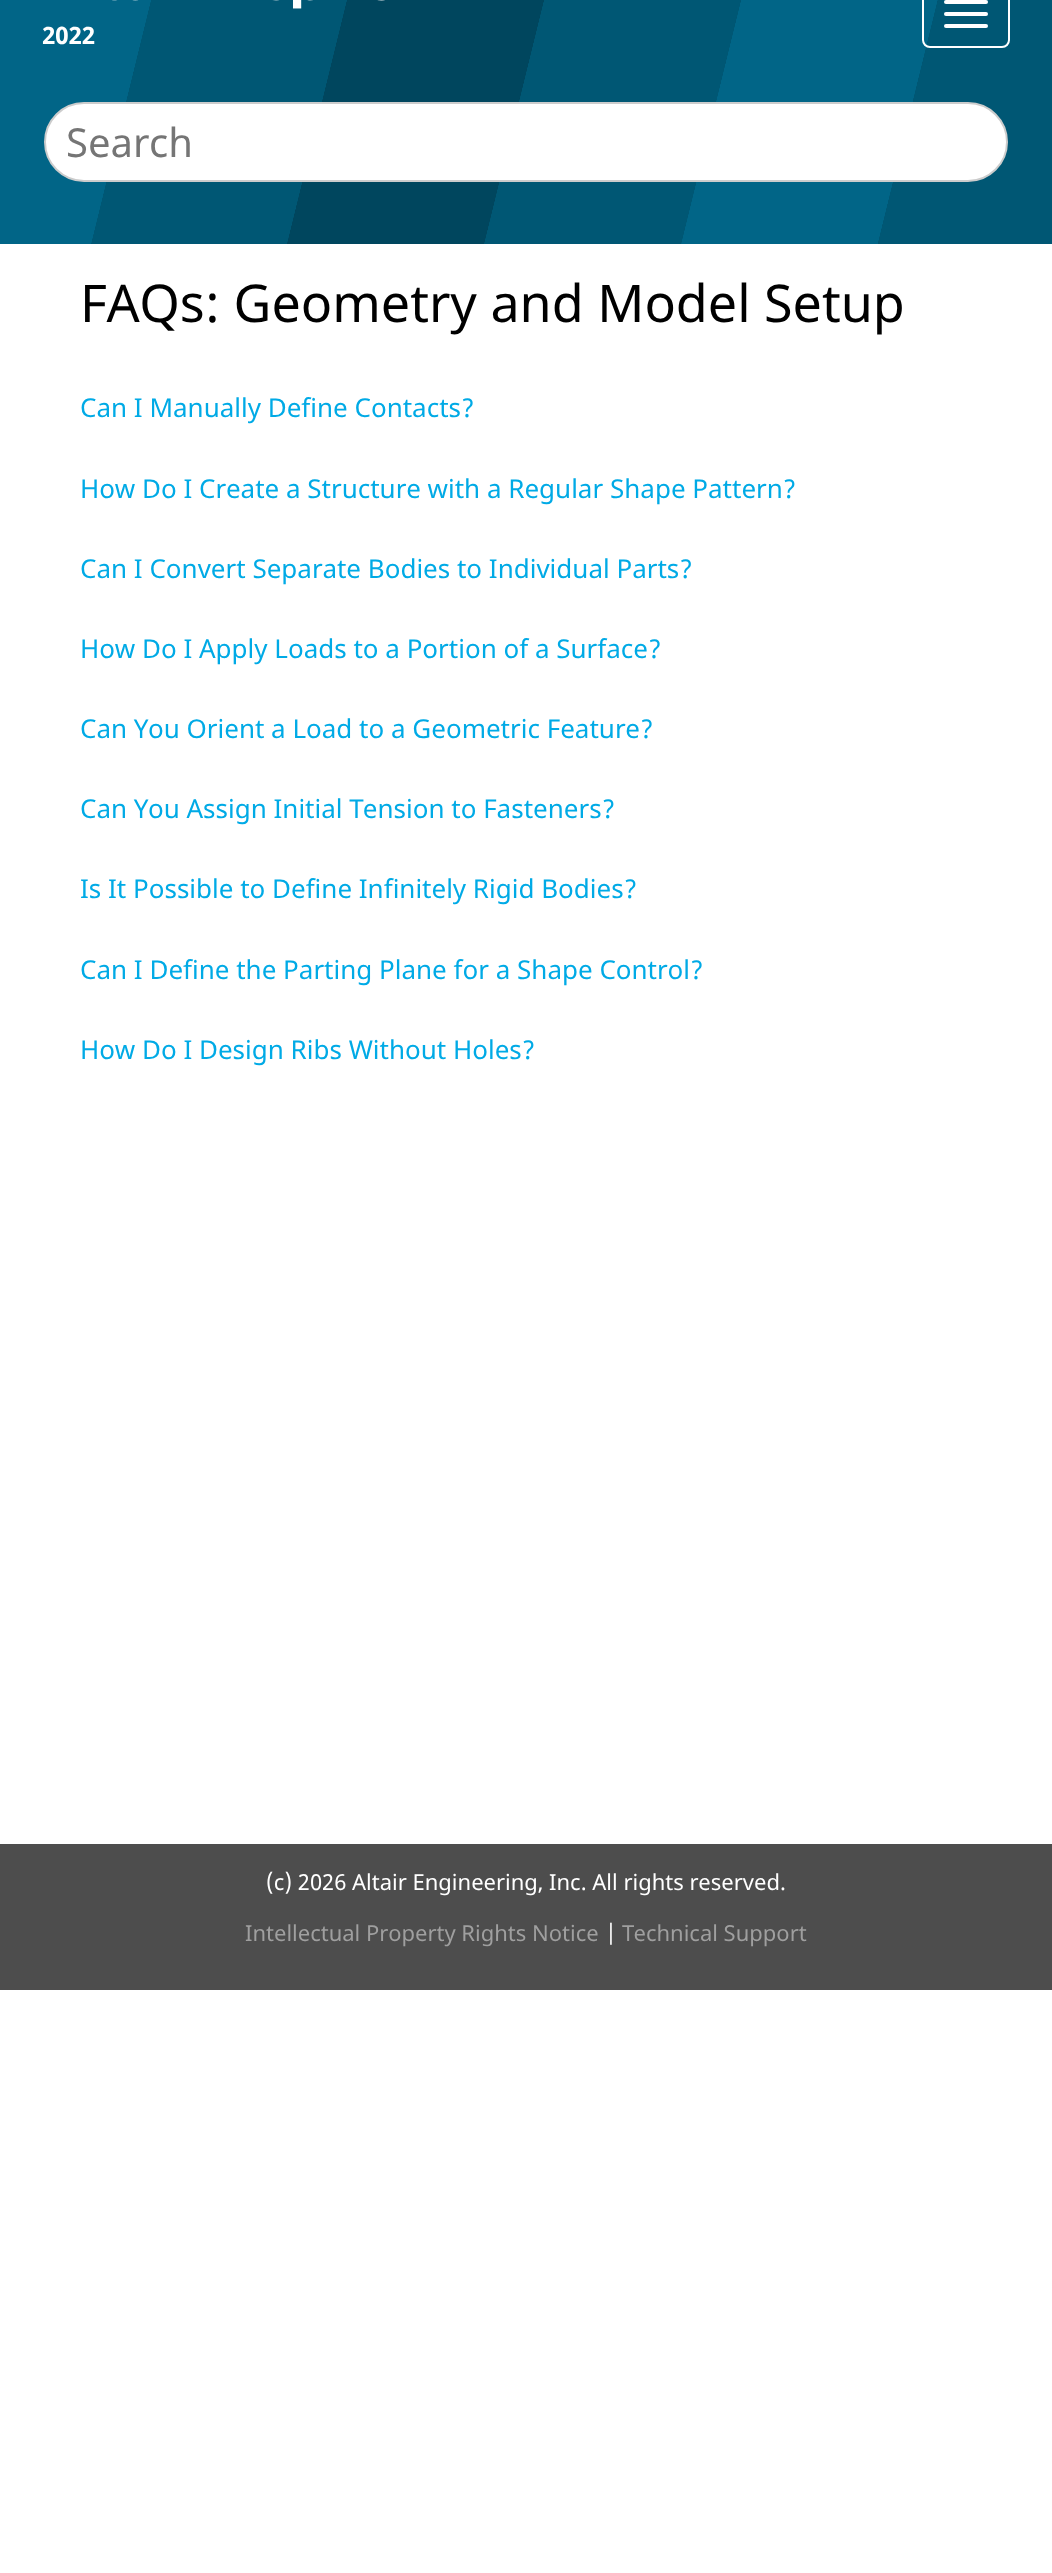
<!DOCTYPE html>
<meta charset="utf-8">
<style>body { margin: 0 } canvas { display: block }</style>
<canvas id="canvas" width="1052" height="2573"></canvas>
<img id="img1" src="img_01.png" hidden>
<img id="img2" src="img_02.png" hidden>
<script>
window.onload = function () {
	const canvas = document.getElementById("canvas");
	const ctx = canvas.getContext("2d");
	ctx.miterLimit = 4;
	ctx.fontKerning = "normal";
	function txt(s, x, y) {
		ctx.fillText(s, x, y);
	}
	function fill(x, y, w, h) {
		ctx.fillRect(x, y, w, h);
	}
	function round(x, y, w, h, r) {
		ctx.beginPath();
		ctx.roundRect(x, y, w, h, r);
		ctx.fill();
	}
	function img(id, x, y, w, h) {
		ctx.drawImage(document.getElementById(id), x, y, w, h);
	}

	ctx.fillStyle = "#FFFFFF";
	fill(0, 0, 1052, 2573);
	img("img1", 0, 0, 1052, 244);
	img("img2", 112, 0, 273, 9);
	ctx.beginPath();
	ctx.roundRect(923, -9, 86, 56, 7);
	ctx.strokeStyle = "#FFFFFF";
	ctx.lineWidth = 2;
	ctx.stroke();
	round(944, 0, 44, 4, 2);
	round(944, 12, 44, 4, 2);
	round(944, 24, 44, 4, 2);
	ctx.beginPath();
	ctx.roundRect(45, 103, 962, 78, 39);
	ctx.fill();
	ctx.strokeStyle = "#CCCCCC";
	ctx.stroke();
	ctx.fillStyle = "#4D4D4D";
	fill(0, 1844, 1052, 146);
	ctx.font = "bold 24px Noto Sans";
	ctx.fillStyle = "#FFFFFF";
	txt("2022", 42, 44);
	ctx.font = "40px Noto Sans";
	ctx.fillStyle = "#757575";
	txt("Search", 66, 157);
	ctx.font = "52px Noto Sans";
	ctx.fillStyle = "#000000";
	txt("FAQs: Geometry and Model Setup", 80, 322);
	ctx.font = "26px Noto Sans";
	ctx.fillStyle = "#00AAE6";
	txt("Can I Manually Define Contacts?", 80, 417);
	txt("How Do I Create a Structure with a Regular Shape Pattern?", 80, 498);
	txt("Can I Convert Separate Bodies to Individual Parts?", 80, 578);
	txt("How Do I Apply Loads to a Portion of a Surface?", 80, 658);
	txt("Can You Orient a Load to a Geometric Feature?", 80, 738);
	txt("Can You Assign Initial Tension to Fasteners?", 80, 818);
	txt("Is It Possible to Define Infinitely Rigid Bodies?", 80, 898);
	txt("Can I Define the Parting Plane for a Shape Control?", 80, 979);
	txt("How Do I Design Ribs Without Holes?", 80, 1059);
	ctx.font = "22px Noto Sans";
	ctx.fillStyle = "#FFFFFF";
	txt("(c) 2026 Altair Engineering, Inc. All rights reserved.", 266, 1890);
	ctx.fillStyle = "#9F9F9F";
	txt("Intellectual Property Rights Notice", 245, 1941);
	ctx.fillStyle = "#FFFFFF";
	txt("|", 605, 1941);
	ctx.fillStyle = "#9F9F9F";
	txt("Technical Support", 622, 1941);
};
</script>
